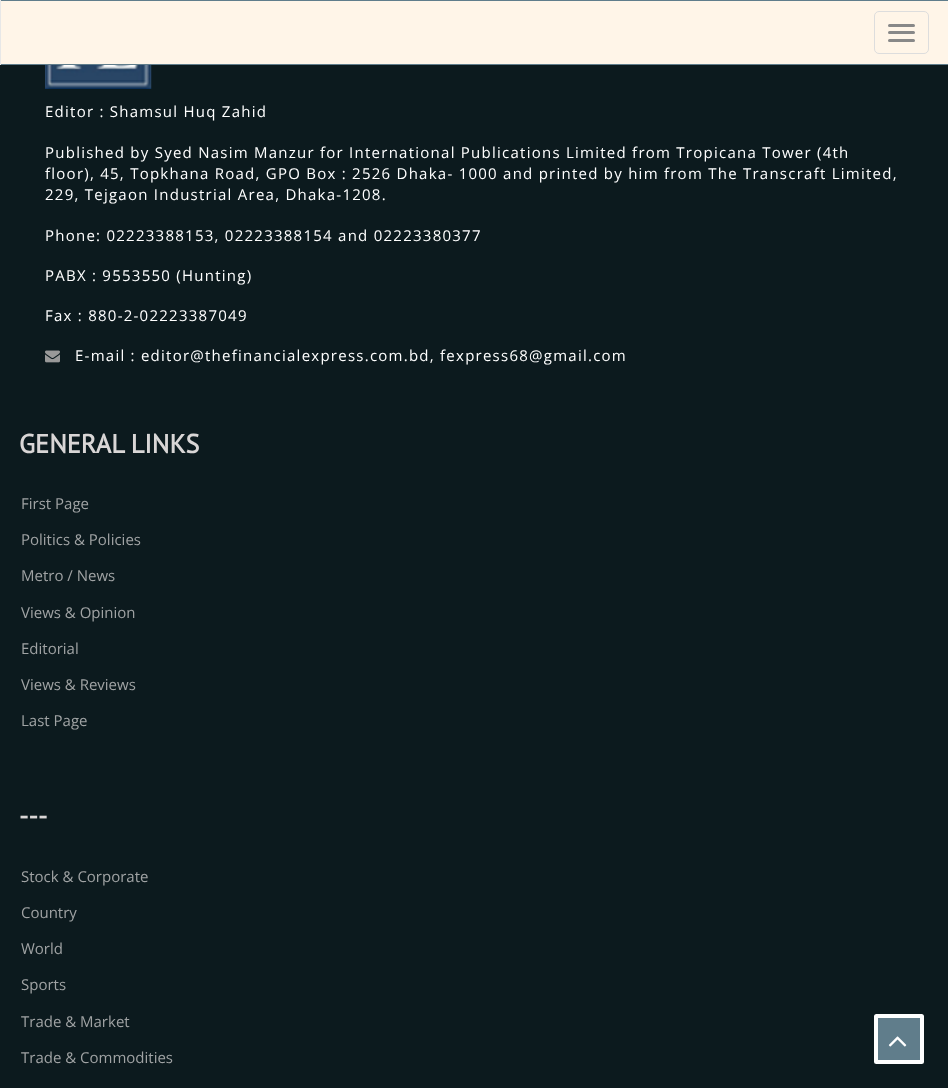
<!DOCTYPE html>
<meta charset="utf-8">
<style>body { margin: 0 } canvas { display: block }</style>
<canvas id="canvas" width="948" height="1088"></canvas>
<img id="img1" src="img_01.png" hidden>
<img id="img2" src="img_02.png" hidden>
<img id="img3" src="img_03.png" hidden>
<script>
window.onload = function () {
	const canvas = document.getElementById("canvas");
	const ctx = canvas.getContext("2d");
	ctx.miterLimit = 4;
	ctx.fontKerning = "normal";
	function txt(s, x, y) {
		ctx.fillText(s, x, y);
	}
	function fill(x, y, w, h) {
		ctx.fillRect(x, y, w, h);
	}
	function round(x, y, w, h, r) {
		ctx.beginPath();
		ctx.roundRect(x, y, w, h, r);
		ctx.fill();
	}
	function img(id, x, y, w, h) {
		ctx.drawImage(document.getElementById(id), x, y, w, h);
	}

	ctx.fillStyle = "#0C1A1E";
	fill(0, 0, 948, 1088);
	ctx.fillStyle = "#FFF5E8";
	fill(1, 1, 947, 63);
	ctx.fillStyle = "#607D8B";
	fill(0, 0, 948, 1);
	fill(0, 64, 948, 1);
	ctx.fillStyle = "#E7E7E7";
	fill(0, 0, 1, 65);
	ctx.beginPath();
	ctx.roundRect(874.5, 11.5, 54, 42, 4.5);
	ctx.strokeStyle = "#DDDDDD";
	ctx.stroke();
	ctx.fillStyle = "#888888";
	round(888, 24, 27, 3, 1.5);
	round(888, 31, 27, 3, 1.5);
	round(888, 39, 27, 3, 1.5);
	img("img1", 45, 65, 107, 24);
	img("img2", 45, 350, 15, 13);
	ctx.fillStyle = "#607D8B";
	ctx.beginPath();
	ctx.roundRect(876, 1016, 46, 46, 0.5);
	ctx.fill();
	ctx.strokeStyle = "#FFFFFF";
	ctx.lineWidth = 4;
	ctx.stroke();
	img("img3", 888, 1036, 19, 11);
	ctx.letterSpacing = "1.25px";
	ctx.font = "15px Open Sans";
	ctx.fillStyle = "#FFFFFF";
	txt("Editor : Shamsul Huq Zahid", 45, 117);
	txt("Published by Syed Nasim Manzur for International Publications Limited from Tropicana Tower (4th", 45, 158);
	txt("floor), 45, Topkhana Road, GPO Box : 2526 Dhaka- 1000 and printed by him from The Transcraft Limited,", 45, 179);
	txt("229, Tejgaon Industrial Area, Dhaka-1208.", 45, 200);
	txt("Phone: 02223388153, 02223388154 and 02223380377", 45, 241);
	txt("PABX : 9553550 (Hunting)", 45, 281);
	txt("Fax : 880-2-02223387049", 45, 321);
	txt("E-mail : editor@thefinancialexpress.com.bd, fexpress68@gmail.com", 75, 361);
	ctx.letterSpacing = "0px";
	ctx.font = "bold 26.25px PT Sans";
	ctx.fillStyle = "#D9D6D6";
	txt("GENERAL LINKS", 19, 453);
	ctx.font = "15px Open Sans";
	ctx.fillStyle = "#A0A3A4";
	txt("First Page", 21, 509);
	txt("Politics & Policies", 21, 545);
	txt("Metro / News", 21, 581);
	txt("Views & Opinion", 21, 618);
	txt("Editorial", 21, 654);
	txt("Views & Reviews", 21, 690);
	txt("Last Page", 21, 726);
	ctx.font = "bold 26.25px PT Sans";
	ctx.fillStyle = "#D9D6D6";
	txt("---", 19, 825);
	ctx.font = "15px Open Sans";
	ctx.fillStyle = "#A0A3A4";
	txt("Stock & Corporate", 21, 882);
	txt("Country", 21, 918);
	txt("World", 21, 954);
	txt("Sports", 21, 990);
	txt("Trade & Market", 21, 1027);
	txt("Trade & Commodities", 21, 1063);
};
</script>
